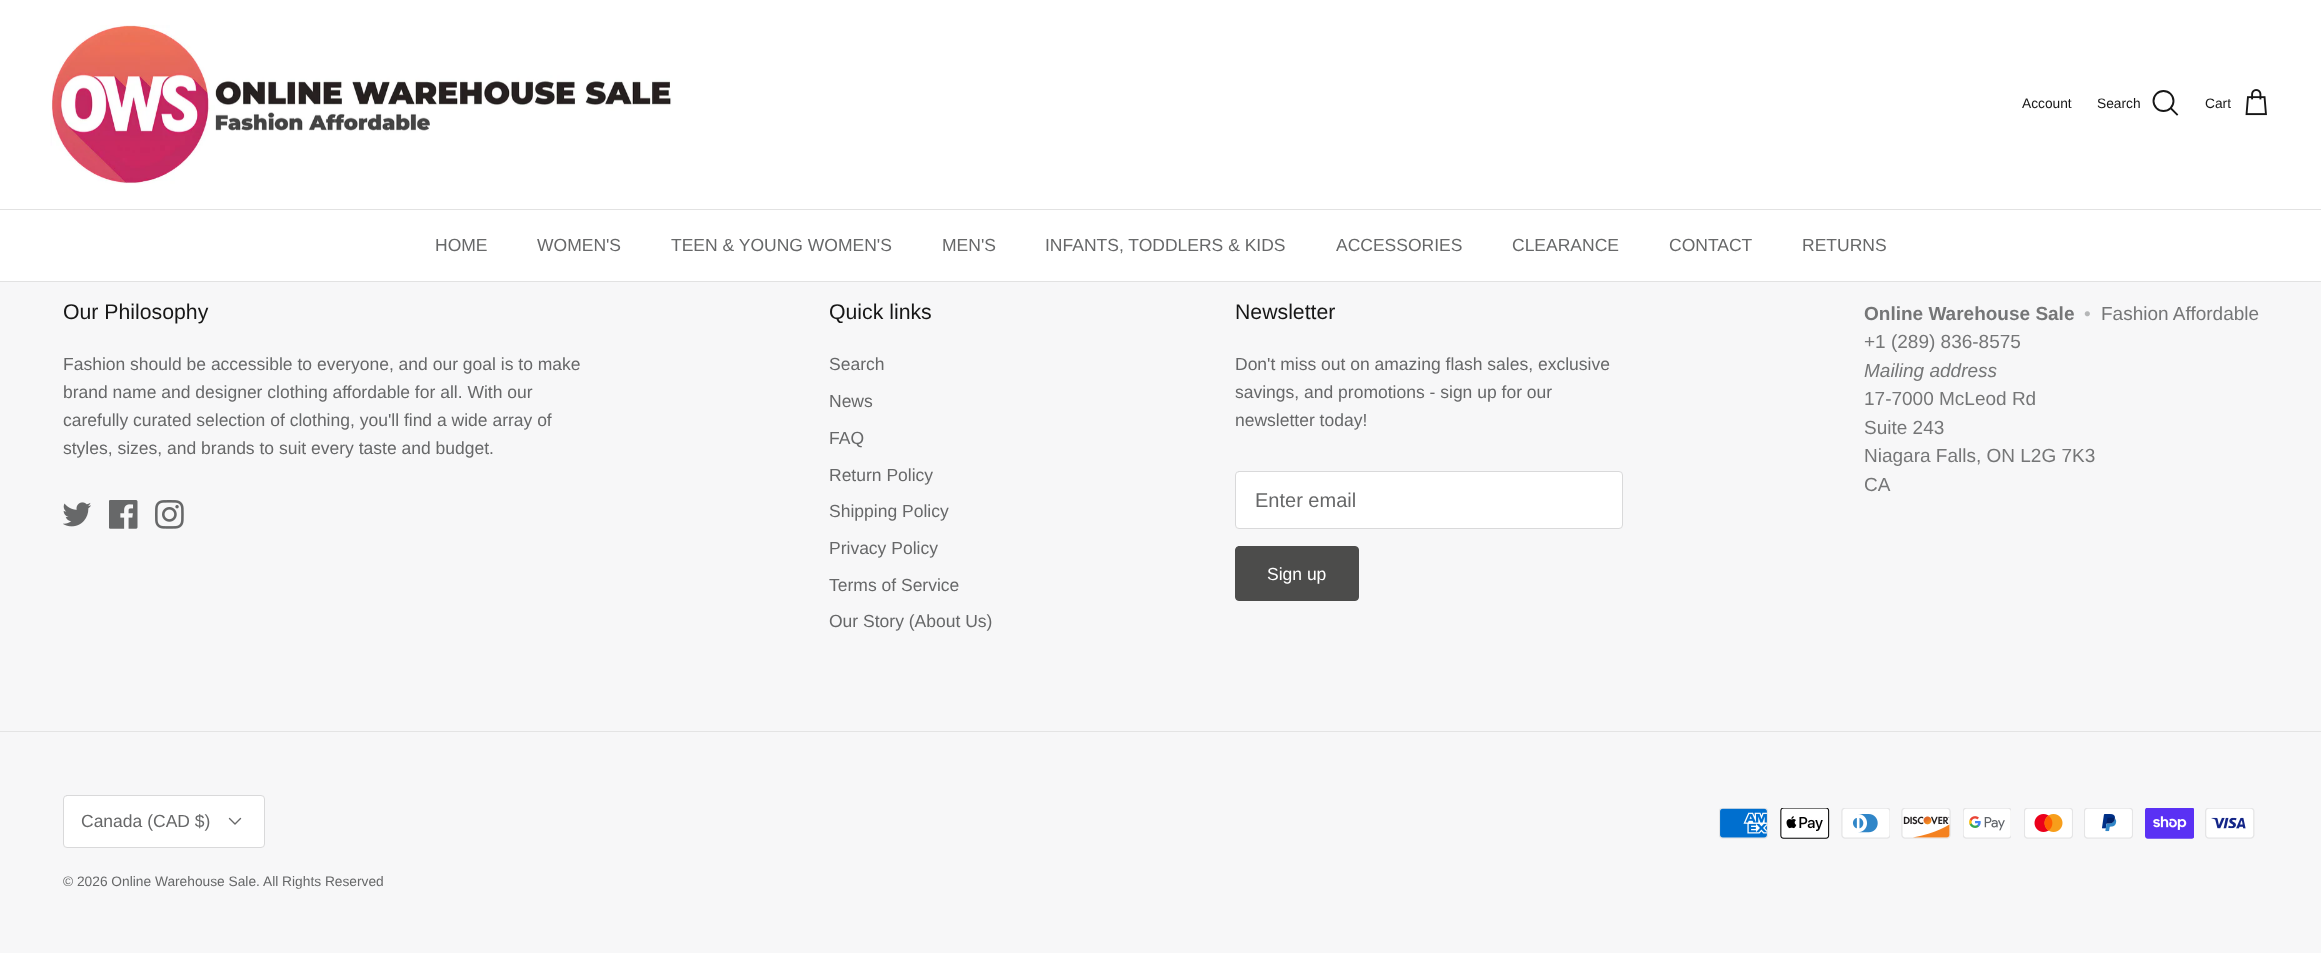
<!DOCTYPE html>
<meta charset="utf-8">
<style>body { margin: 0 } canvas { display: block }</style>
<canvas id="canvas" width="2321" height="953"></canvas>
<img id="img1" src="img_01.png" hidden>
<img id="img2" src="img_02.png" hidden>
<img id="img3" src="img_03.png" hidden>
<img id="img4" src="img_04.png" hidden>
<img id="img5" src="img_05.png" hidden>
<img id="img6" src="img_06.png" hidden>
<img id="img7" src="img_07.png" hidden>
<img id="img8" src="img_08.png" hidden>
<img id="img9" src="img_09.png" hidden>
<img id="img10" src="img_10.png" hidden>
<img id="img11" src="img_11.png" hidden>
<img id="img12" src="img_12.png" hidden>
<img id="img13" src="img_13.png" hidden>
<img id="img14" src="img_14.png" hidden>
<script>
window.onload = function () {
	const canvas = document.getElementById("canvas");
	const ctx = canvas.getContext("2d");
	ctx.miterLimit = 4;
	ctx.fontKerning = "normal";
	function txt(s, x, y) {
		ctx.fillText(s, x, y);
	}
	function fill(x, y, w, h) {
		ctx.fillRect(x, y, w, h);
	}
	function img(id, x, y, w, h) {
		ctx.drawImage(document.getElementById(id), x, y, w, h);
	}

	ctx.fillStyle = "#F7F7F8";
	fill(0, 0, 2321, 953);
	ctx.fillStyle = "#FFFFFF";
	fill(0, 0, 2321, 209);
	ctx.fillStyle = "#E2E2E2";
	fill(0, 209, 2321, 1);
	img("img1", 50, 25, 622, 159);
	ctx.beginPath();
	ctx.arc(2163.5, 101, 10, 0, Math.PI * 2);
	ctx.strokeStyle = "#171717";
	ctx.lineWidth = 1.9;
	ctx.stroke();
	ctx.beginPath();
	ctx.moveTo(2171, 108.5);
	ctx.lineTo(2177, 114.5);
	ctx.lineCap = "square";
	ctx.stroke();
	img("img2", 2245, 89, 22, 27);
	fill(0, 281, 2321, 1);
	ctx.fillStyle = "#FFFFFF";
	fill(0, 210, 2321, 71);
	img("img3", 63, 502, 28, 25);
	img("img4", 109, 500, 29, 29);
	img("img5", 155, 500, 29, 29);
	ctx.beginPath();
	ctx.roundRect(1235.5, 471.5, 387, 57, 3.5);
	ctx.fill();
	ctx.strokeStyle = "#D9D9DA";
	ctx.lineWidth = 1;
	ctx.stroke();
	ctx.fillStyle = "#4C4C4B";
	ctx.beginPath();
	ctx.roundRect(1235.5, 546.5, 123, 54, 3.5);
	ctx.fill();
	ctx.strokeStyle = "#4C4C4B";
	ctx.stroke();
	ctx.fillStyle = "#E4E4E4";
	fill(0, 731, 2321, 1);
	ctx.fillStyle = "#FFFFFF";
	ctx.beginPath();
	ctx.roundRect(63.5, 795.5, 201, 52, 3.5);
	ctx.fill();
	ctx.strokeStyle = "#D9D9DA";
	ctx.stroke();
	ctx.beginPath();
	ctx.moveTo(229.5, 818.5);
	ctx.lineTo(235, 824);
	ctx.lineTo(240.5, 818.5);
	ctx.strokeStyle = "#676869";
	ctx.lineWidth = 1.4;
	ctx.lineCap = "round";
	ctx.lineJoin = "round";
	ctx.stroke();
	img("img6", 1719, 808, 49, 31);
	img("img7", 1780, 808, 50, 31);
	img("img8", 1841, 808, 49, 31);
	img("img9", 1901, 808, 50, 31);
	img("img10", 1963, 808, 48, 31);
	img("img11", 2024, 808, 49, 31);
	img("img12", 2084, 808, 49, 31);
	img("img13", 2145, 808, 49, 31);
	img("img14", 2205, 808, 50, 31);
	ctx.font = "13.75px Arimo";
	ctx.fillStyle = "#171717";
	txt("Account", 2022, 108);
	txt("Search", 2097, 108);
	txt("Cart", 2205, 108);
	ctx.font = "17.5px Arimo";
	ctx.fillStyle = "#676869";
	txt("HOME", 435, 251);
	txt("WOMEN'S", 537, 251);
	txt("TEEN & YOUNG WOMEN'S", 671, 251);
	txt("MEN'S", 942, 251);
	txt("INFANTS, TODDLERS & KIDS", 1045, 251);
	txt("ACCESSORIES", 1336, 251);
	txt("CLEARANCE", 1512, 251);
	txt("CONTACT", 1669, 251);
	txt("RETURNS", 1802, 251);
	ctx.font = "21.25px Arimo";
	ctx.fillStyle = "#171717";
	txt("Our Philosophy", 63, 319);
	ctx.font = "17.5px Arimo";
	ctx.fillStyle = "#676869";
	txt("Fashion should be accessible to everyone, and our goal is to make", 63, 370);
	txt("brand name and designer clothing affordable for all. With our", 63, 398);
	txt("carefully curated selection of clothing, you'll find a wide array of", 63, 426);
	txt("styles, sizes, and brands to suit every taste and budget.", 63, 454);
	ctx.font = "21.25px Arimo";
	ctx.fillStyle = "#171717";
	txt("Quick links", 829, 319);
	ctx.font = "17.5px Arimo";
	ctx.fillStyle = "#676869";
	txt("Search", 829, 370);
	txt("News", 829, 407);
	txt("FAQ", 829, 444);
	txt("Return Policy", 829, 481);
	txt("Shipping Policy", 829, 517);
	txt("Privacy Policy", 829, 554);
	txt("Terms of Service", 829, 591);
	txt("Our Story (About Us)", 829, 627);
	ctx.font = "21.25px Arimo";
	ctx.fillStyle = "#171717";
	txt("Newsletter", 1235, 319);
	ctx.font = "17.5px Arimo";
	ctx.fillStyle = "#676869";
	txt("Don't miss out on amazing flash sales, exclusive", 1235, 370);
	txt("savings, and promotions - sign up for our", 1235, 398);
	txt("newsletter today!", 1235, 426);
	ctx.font = "20px Arimo";
	txt("Enter email", 1255, 507);
	ctx.font = "17.5px Arimo";
	ctx.fillStyle = "#FFFFFF";
	txt("Sign up", 1267, 580);
	ctx.font = "bold 19px Arimo";
	ctx.fillStyle = "#757677";
	txt("Online Warehouse Sale", 1864, 320);
	ctx.font = "19px Arimo";
	ctx.fillStyle = "#B6B7B8";
	txt("•", 2084, 320);
	ctx.fillStyle = "#757677";
	txt("Fashion Affordable", 2101, 320);
	txt("+1 (289) 836-8575", 1864, 348);
	ctx.font = "italic 19px Arimo";
	txt("Mailing address", 1864, 377);
	ctx.font = "19px Arimo";
	txt("17-7000 McLeod Rd", 1864, 405);
	txt("Suite 243", 1864, 434);
	txt("Niagara Falls, ON L2G 7K3", 1864, 462);
	txt("CA", 1864, 491);
	ctx.font = "17.5px Arimo";
	ctx.fillStyle = "#676869";
	txt("Canada (CAD $)", 81, 827);
	ctx.font = "13.75px Arimo";
	txt("© 2026 Online Warehouse Sale.", 63, 886);
	txt("All Rights Reserved", 263, 886);
};
</script>
